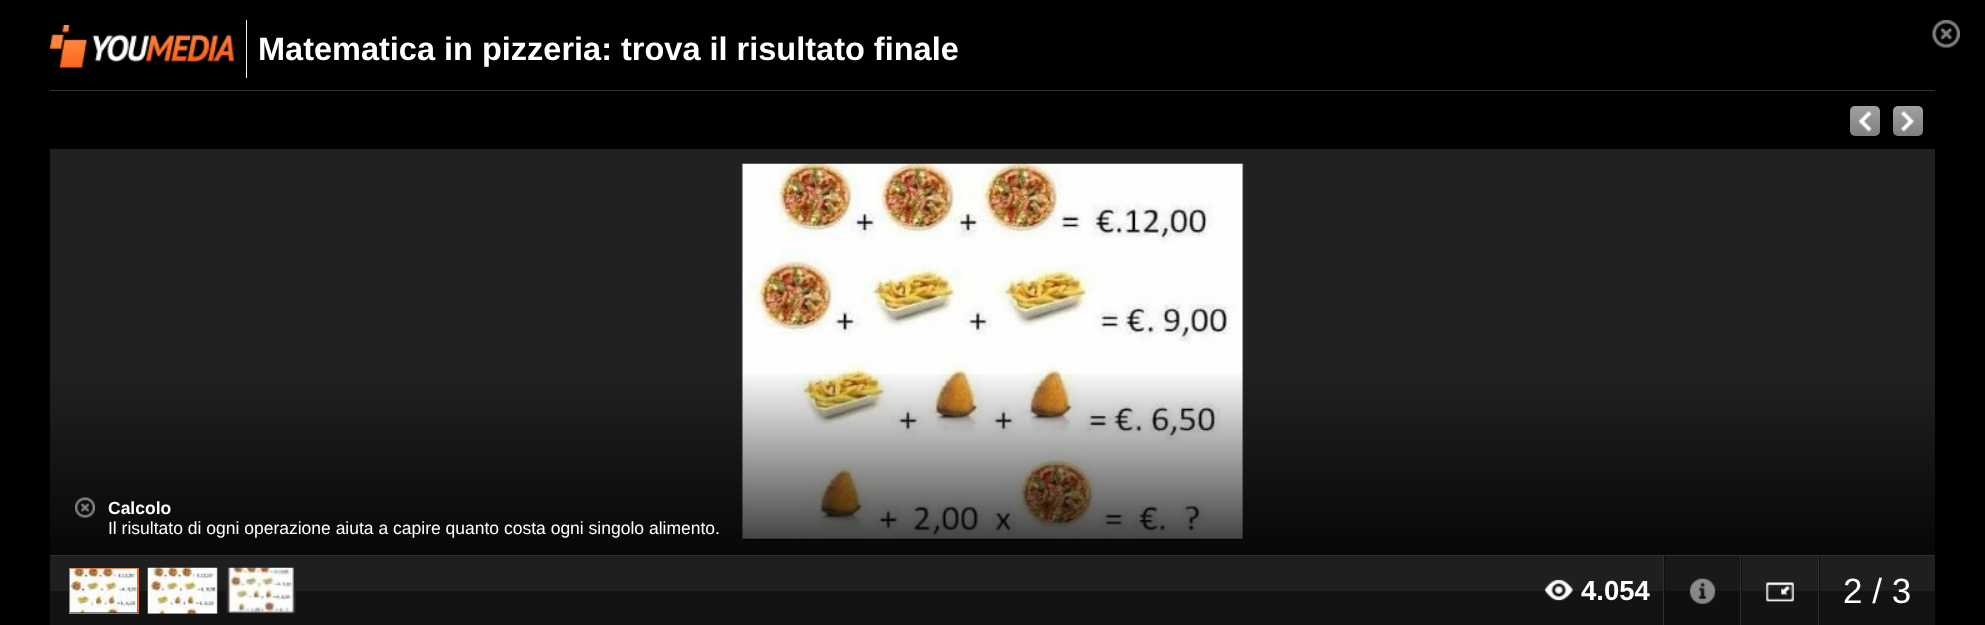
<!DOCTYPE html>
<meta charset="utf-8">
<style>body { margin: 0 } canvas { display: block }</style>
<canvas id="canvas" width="1985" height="625"></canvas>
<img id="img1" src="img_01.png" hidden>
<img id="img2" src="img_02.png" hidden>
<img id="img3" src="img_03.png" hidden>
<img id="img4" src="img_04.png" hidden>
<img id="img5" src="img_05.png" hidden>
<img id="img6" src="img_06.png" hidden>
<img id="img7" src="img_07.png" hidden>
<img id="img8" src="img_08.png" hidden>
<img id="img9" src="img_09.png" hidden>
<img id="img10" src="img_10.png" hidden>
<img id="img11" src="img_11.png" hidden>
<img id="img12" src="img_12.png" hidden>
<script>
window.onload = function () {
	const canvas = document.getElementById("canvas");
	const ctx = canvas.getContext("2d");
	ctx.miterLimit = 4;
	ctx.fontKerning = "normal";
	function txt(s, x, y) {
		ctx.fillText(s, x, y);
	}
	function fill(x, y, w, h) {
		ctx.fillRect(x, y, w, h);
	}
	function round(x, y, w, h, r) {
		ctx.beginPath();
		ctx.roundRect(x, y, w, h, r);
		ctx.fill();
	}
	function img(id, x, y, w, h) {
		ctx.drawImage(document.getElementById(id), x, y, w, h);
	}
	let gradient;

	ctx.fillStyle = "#000000";
	fill(0, 0, 1985, 625);
	ctx.fillStyle = "#333333";
	fill(50, 90, 1885, 1);
	img("img1", 50, 25, 184, 43);
	ctx.fillStyle = "#F7F7F5";
	fill(246, 20, 1, 58);
	img("img2", 1932, 20, 28, 28);
	gradient = ctx.createLinearGradient(1865, 106, 1865, 136);
	gradient.addColorStop(0, "#A1A1A1");
	gradient.addColorStop(1, "#7E7E7E");
	ctx.fillStyle = gradient;
	round(1850, 106, 30, 30, 5);
	img("img3", 1858, 111, 14, 21);
	gradient = ctx.createLinearGradient(1908, 106, 1908, 136);
	gradient.addColorStop(0, "#A1A1A1");
	gradient.addColorStop(1, "#7E7E7E");
	ctx.fillStyle = gradient;
	round(1893, 106, 30, 30, 5);
	img("img4", 1901, 111, 13, 21);
	ctx.fillStyle = "#212121";
	fill(50, 149, 1885, 406);
	img("img5", 741, 163, 503, 379);
	gradient = ctx.createLinearGradient(993, 369, 993, 556);
	gradient.addColorStop(0, "rgba(0, 0, 0, 0)");
	gradient.addColorStop(1, "rgba(0, 0, 0, 0.8)");
	ctx.fillStyle = gradient;
	fill(50, 374, 1885, 181);
	img("img6", 75, 497, 20, 21);
	ctx.fillStyle = "#131313";
	fill(50, 591, 1885, 34);
	ctx.fillStyle = "#1F1F1F";
	fill(50, 556, 1885, 35);
	ctx.fillStyle = "#313131";
	fill(50, 555, 1885, 1);
	ctx.strokeStyle = "#DA6D31";
	ctx.strokeRect(69.5, 568.5, 69, 45);
	img("img7", 70, 568, 68, 45);
	img("img8", 147, 567, 71, 47);
	img("img9", 226, 567, 70, 47);
	ctx.fillStyle = "#0F0F0F";
	fill(1665, 591, 75, 34);
	ctx.fillStyle = "#191919";
	fill(1665, 556, 75, 35);
	ctx.fillStyle = "#313131";
	fill(1663, 556, 1, 69);
	img("img10", 1544, 579, 29, 22);
	fill(1740, 556, 1, 69);
	ctx.fillStyle = "#0F0F0F";
	fill(1664, 556, 1, 69);
	img("img11", 1689, 578, 27, 26);
	ctx.fillStyle = "#313131";
	fill(1818, 556, 1, 69);
	ctx.fillStyle = "#0F0F0F";
	fill(1741, 556, 1, 69);
	img("img12", 1766, 582, 28, 20);
	fill(1819, 556, 1, 69);
	ctx.font = "bold 32.5px Liberation Sans";
	ctx.fillStyle = "#FFFFFF";
	txt("Matematica in pizzeria: trova il risultato finale", 258, 60);
	ctx.font = "bold 17.5px Liberation Sans";
	txt("Calcolo", 108, 514);
	ctx.font = "17.5px Liberation Sans";
	txt("Il risultato di ogni operazione aiuta a capire quanto costa ogni singolo alimento.", 108, 534);
	ctx.font = "bold 27.5px Liberation Sans";
	txt("4.054", 1581, 600);
	ctx.font = "35px Liberation Sans";
	txt("2 / 3", 1843, 603);
};
</script>
